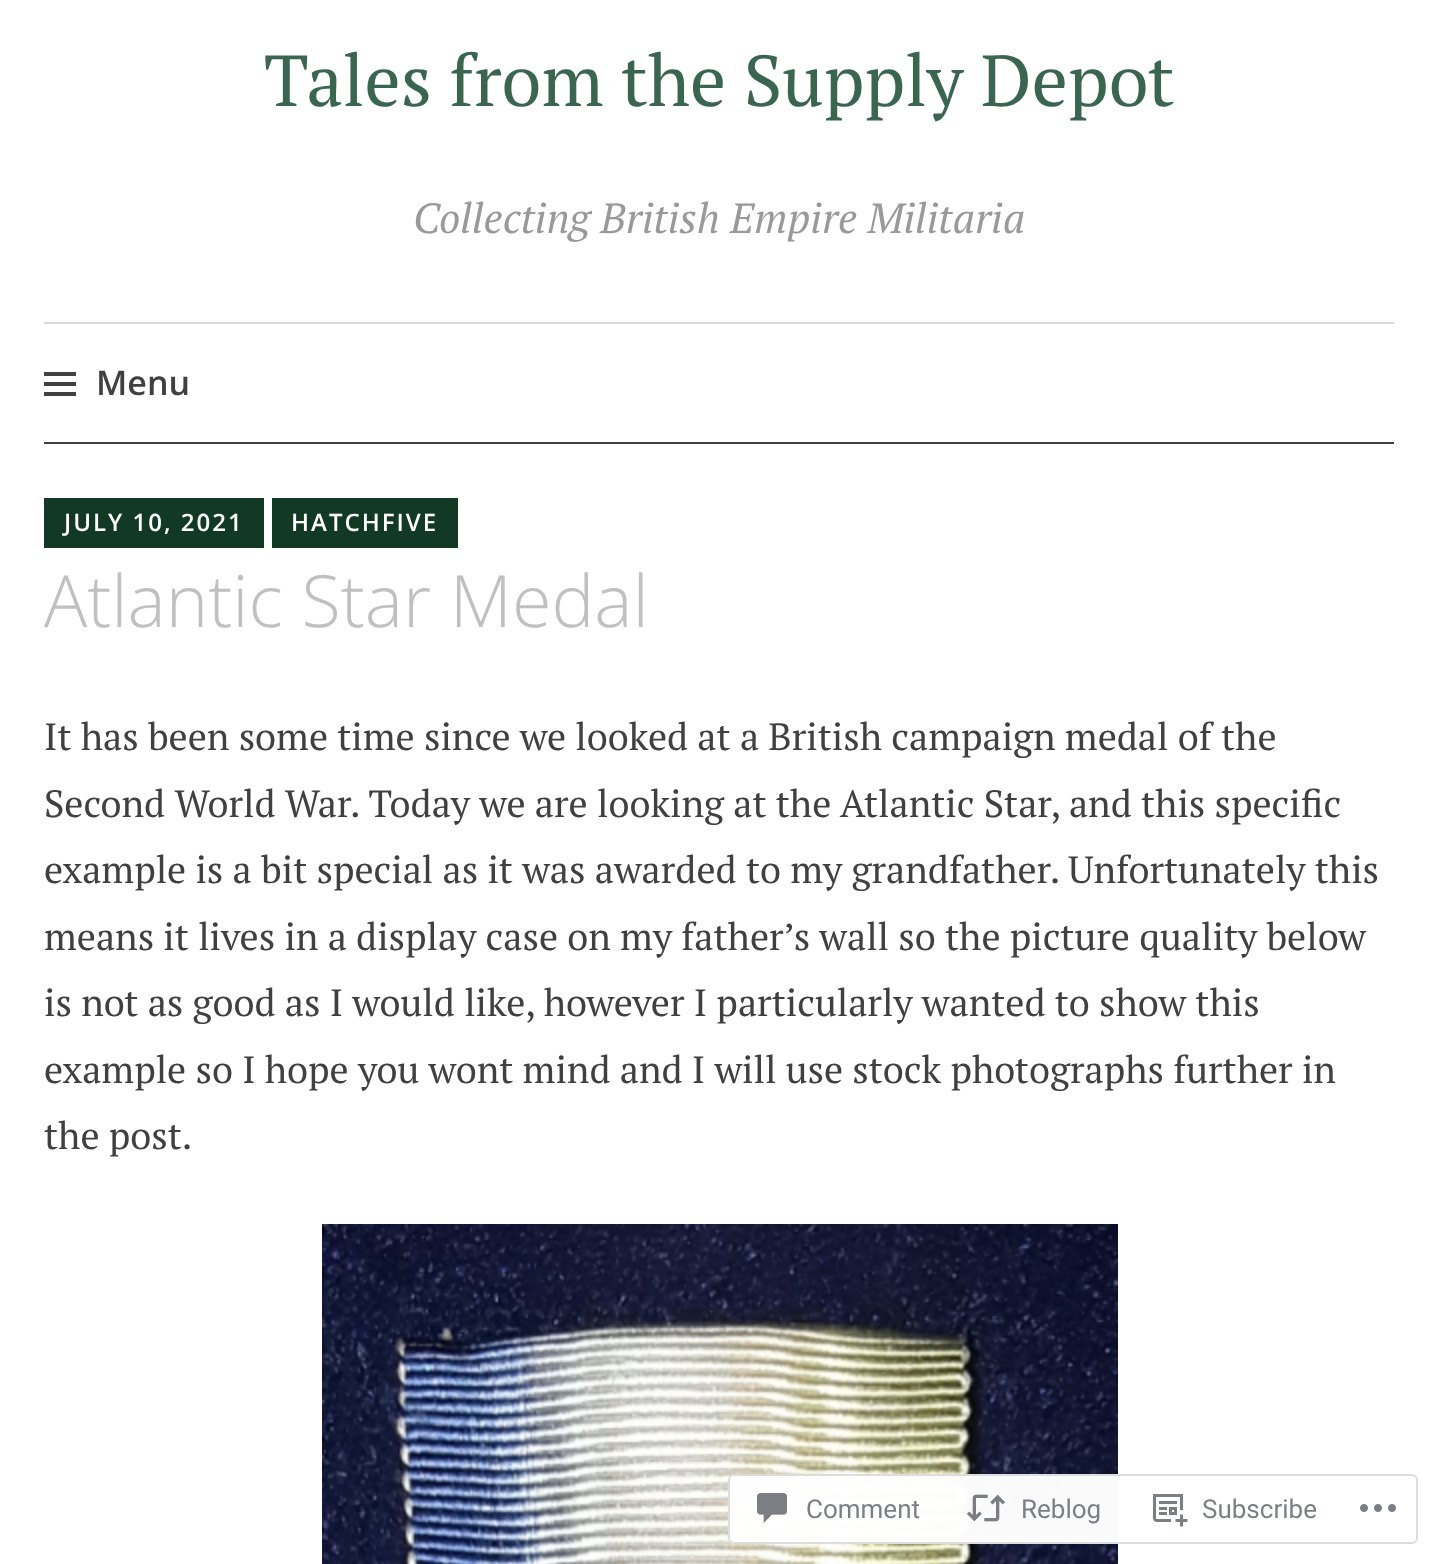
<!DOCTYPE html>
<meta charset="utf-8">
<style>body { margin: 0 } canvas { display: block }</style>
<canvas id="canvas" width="1437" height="1564"></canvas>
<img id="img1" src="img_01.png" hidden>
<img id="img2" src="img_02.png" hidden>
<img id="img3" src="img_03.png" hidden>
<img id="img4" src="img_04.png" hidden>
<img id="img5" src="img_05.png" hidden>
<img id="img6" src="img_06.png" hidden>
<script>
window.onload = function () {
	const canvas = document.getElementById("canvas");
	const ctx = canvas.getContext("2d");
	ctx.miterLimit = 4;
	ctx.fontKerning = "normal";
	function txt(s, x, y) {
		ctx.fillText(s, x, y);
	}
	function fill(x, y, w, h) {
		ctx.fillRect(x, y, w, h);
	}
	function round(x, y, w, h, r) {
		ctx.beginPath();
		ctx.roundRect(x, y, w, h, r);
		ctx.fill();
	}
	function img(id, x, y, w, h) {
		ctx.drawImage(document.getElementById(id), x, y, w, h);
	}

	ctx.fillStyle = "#FFFFFF";
	fill(0, 0, 1437, 1564);
	ctx.fillStyle = "#D9D9D9";
	fill(44, 322, 1350, 2);
	ctx.fillStyle = "#404040";
	fill(44, 442, 1350, 2);
	img("img1", 44, 372, 32, 24);
	ctx.fillStyle = "#123926";
	fill(44, 498, 220, 50);
	fill(272, 498, 186, 50);
	img("img2", 322, 1224, 796, 340);
	ctx.fillStyle = "rgba(255, 255, 255, 0.98)";
	round(728, 1474, 690, 70, 6);
	ctx.beginPath();
	ctx.roundRect(729, 1475, 688, 68, 5);
	ctx.strokeStyle = "rgba(220, 220, 222, 0.98)";
	ctx.lineWidth = 2;
	ctx.stroke();
	img("img3", 757, 1493, 30, 30);
	img("img4", 966, 1494, 40, 28);
	img("img5", 1153, 1494, 35, 33);
	img("img6", 1360, 1504, 36, 8);
	ctx.font = "72px PT Serif";
	ctx.fillStyle = "#3A6551";
	txt("Tales from the Supply Depot", 264, 106);
	ctx.font = "italic 42px PT Serif";
	ctx.fillStyle = "#999999";
	txt("Collecting British Empire Militaria", 413, 233);
	ctx.font = "600 34px Open Sans";
	ctx.fillStyle = "#404040";
	txt("Menu", 96, 395);
	ctx.letterSpacing = "2px";
	ctx.font = "600 24px Open Sans";
	ctx.fillStyle = "#FFFFFF";
	txt("JULY 10, 2021", 64, 531);
	txt("HATCHFIVE", 291, 531);
	ctx.letterSpacing = "0px";
	ctx.font = "300 72px Open Sans";
	ctx.fillStyle = "#C0C0C0";
	txt("Atlantic Star Medal", 44, 627);
	ctx.font = "38px PT Serif";
	ctx.fillStyle = "#404040";
	txt("It has been some time since we looked at a British campaign medal of the", 44, 750);
	txt("Second World War. Today we are looking at the Atlantic Star, and this specific", 44, 817);
	txt("example is a bit special as it was awarded to my grandfather. Unfortunately this", 44, 883);
	txt("means it lives in a display case on my father’s wall so the picture quality below", 44, 950);
	txt("is not as good as I would like, however I particularly wanted to show this", 44, 1016);
	txt("example so I hope you wont mind and I will use stock photographs further in", 44, 1083);
	txt("the post.", 44, 1149);
	ctx.font = "26px Roboto";
	ctx.fillStyle = "#7B7F84";
	txt("Comment", 806, 1518);
	txt("Reblog", 1021, 1518);
	txt("Subscribe", 1202, 1518);
};
</script>
